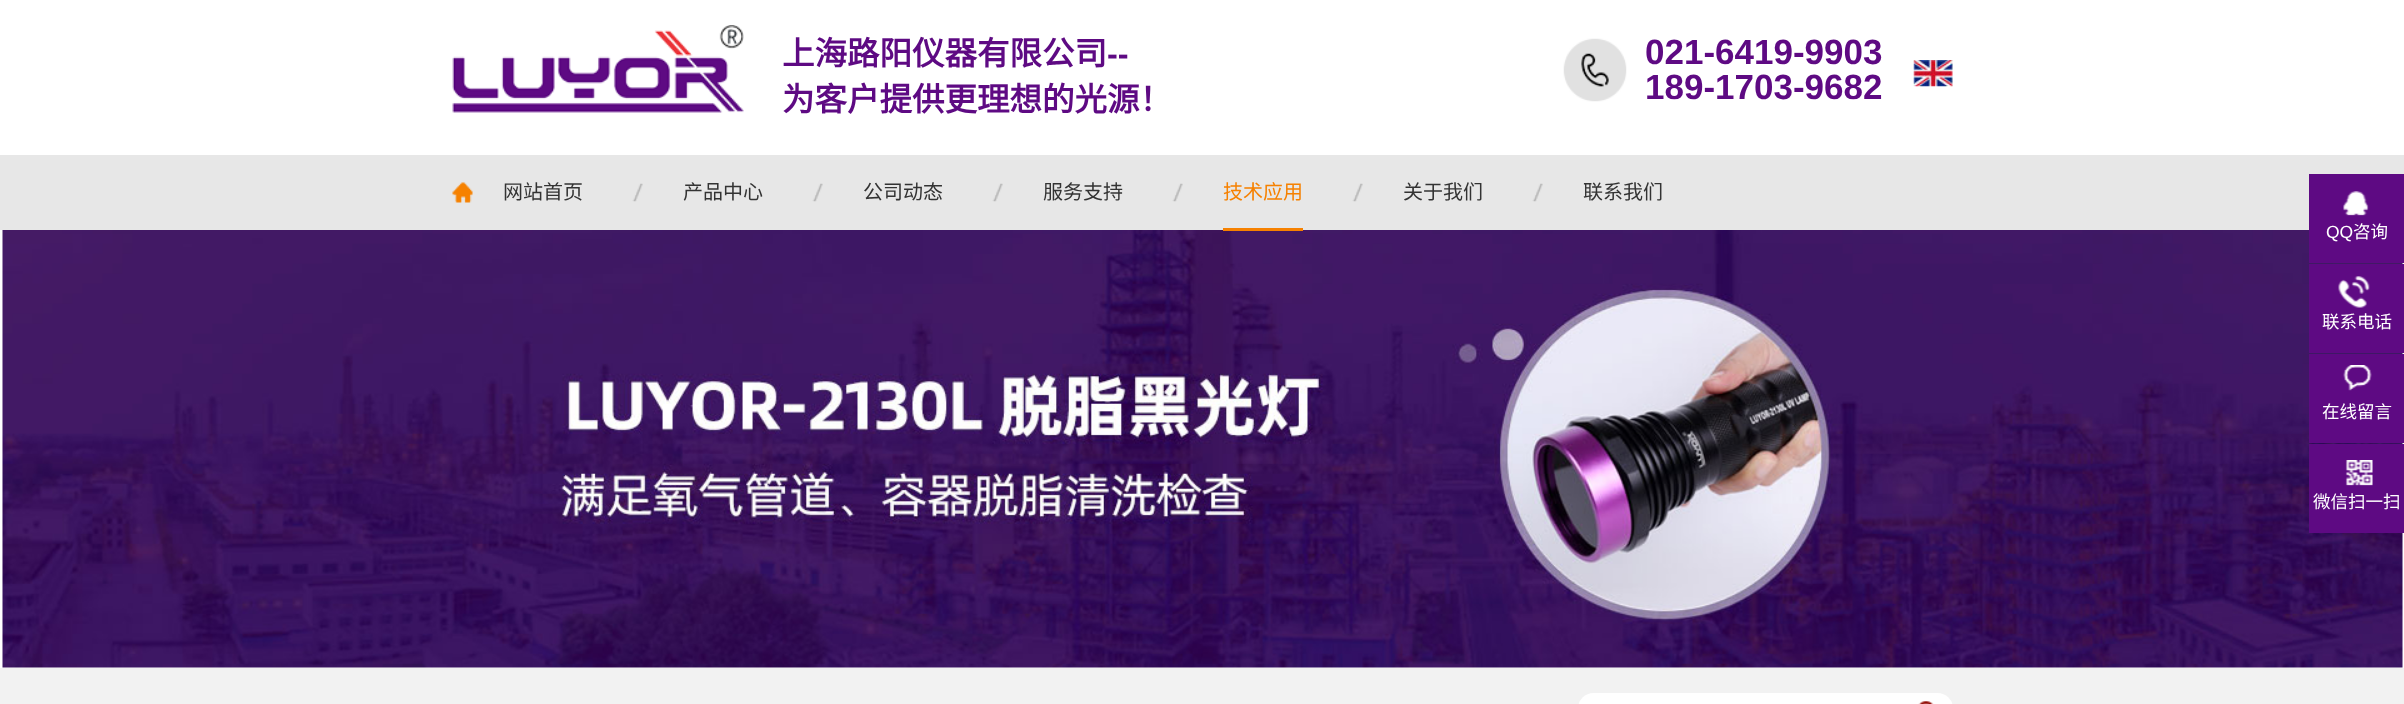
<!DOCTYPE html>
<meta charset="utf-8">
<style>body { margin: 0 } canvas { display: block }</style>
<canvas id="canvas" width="2404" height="704"></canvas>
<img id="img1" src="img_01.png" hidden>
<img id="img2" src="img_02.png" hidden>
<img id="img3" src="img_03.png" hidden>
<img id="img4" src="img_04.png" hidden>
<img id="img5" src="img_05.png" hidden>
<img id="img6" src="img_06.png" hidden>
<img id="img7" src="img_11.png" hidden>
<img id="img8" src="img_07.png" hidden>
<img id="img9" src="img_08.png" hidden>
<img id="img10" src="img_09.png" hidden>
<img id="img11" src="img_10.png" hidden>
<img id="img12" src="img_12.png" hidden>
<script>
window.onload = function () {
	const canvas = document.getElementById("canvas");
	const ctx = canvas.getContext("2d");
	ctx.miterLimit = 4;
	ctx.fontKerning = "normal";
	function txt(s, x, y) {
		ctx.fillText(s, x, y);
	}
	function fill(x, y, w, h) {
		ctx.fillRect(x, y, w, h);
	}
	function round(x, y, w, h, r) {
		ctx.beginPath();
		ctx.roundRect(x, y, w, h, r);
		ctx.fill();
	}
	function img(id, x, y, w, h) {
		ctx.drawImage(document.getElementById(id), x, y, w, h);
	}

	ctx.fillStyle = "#FFFFFF";
	fill(0, 0, 2404, 704);
	img("img1", 452, 25, 292, 88);
	img("img2", 1563, 38, 64, 64);
	img("img3", 1913, 60, 40, 27);
	ctx.fillStyle = "#E7E7E7";
	fill(0, 155, 2404, 75);
	img("img4", 452, 182, 21, 21);
	img("img5", 632, 183, 11, 19);
	img("img6", 812, 183, 11, 19);
	img("img6", 992, 183, 11, 19);
	img("img6", 1172, 183, 11, 19);
	img("img7", 2, 230, 2401, 438);
	ctx.fillStyle = "#F68100";
	fill(1223, 228, 80, 3);
	img("img5", 1352, 183, 11, 19);
	img("img6", 1532, 183, 11, 19);
	ctx.fillStyle = "#5E0A83";
	fill(2309, 174, 95, 89);
	img("img8", 2343, 191, 26, 25);
	fill(2309, 264, 95, 89);
	img("img9", 2338, 276, 32, 32);
	fill(2309, 354, 95, 89);
	img("img10", 2343, 365, 29, 26);
	fill(2309, 444, 95, 89);
	img("img11", 2345, 460, 28, 26);
	ctx.fillStyle = "#F2F2F2";
	fill(0, 668, 2404, 36);
	ctx.fillStyle = "#FFFFFF";
	round(1578, 693, 375, 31, 20);
	img("img12", 1918, 701, 16, 3);
	ctx.font = "bold 32.5px Noto Sans CJK SC";
	ctx.fillStyle = "#5E0A83";
	txt("上海路阳仪器有限公司", 782, 65);
	ctx.font = "bold 32.5px Liberation Sans";
	txt("--", 1107, 65);
	ctx.font = "bold 32.5px Noto Sans CJK SC";
	txt("为客户提供更理想的光源！", 782, 111);
	ctx.font = "bold 35px Liberation Sans";
	txt("021-6419-9903", 1645, 64);
	txt("189-1703-9682", 1645, 99);
	ctx.font = "20px Noto Sans CJK SC";
	ctx.fillStyle = "#333333";
	txt("网站首页", 503, 199);
	txt("产品中心", 683, 199);
	txt("公司动态", 863, 199);
	txt("服务支持", 1043, 199);
	ctx.fillStyle = "#F68100";
	txt("技术应用", 1223, 199);
	ctx.fillStyle = "#333333";
	txt("关于我们", 1403, 199);
	txt("联系我们", 1583, 199);
	ctx.font = "17.5px Liberation Sans";
	ctx.fillStyle = "#FFFFFF";
	txt("QQ", 2326, 238);
	ctx.font = "17.5px Noto Sans CJK SC";
	txt("咨询", 2353, 238);
	txt("联系电话", 2322, 328);
	txt("在线留言", 2322, 418);
	txt("微信扫一扫", 2313, 508);
};
</script>
